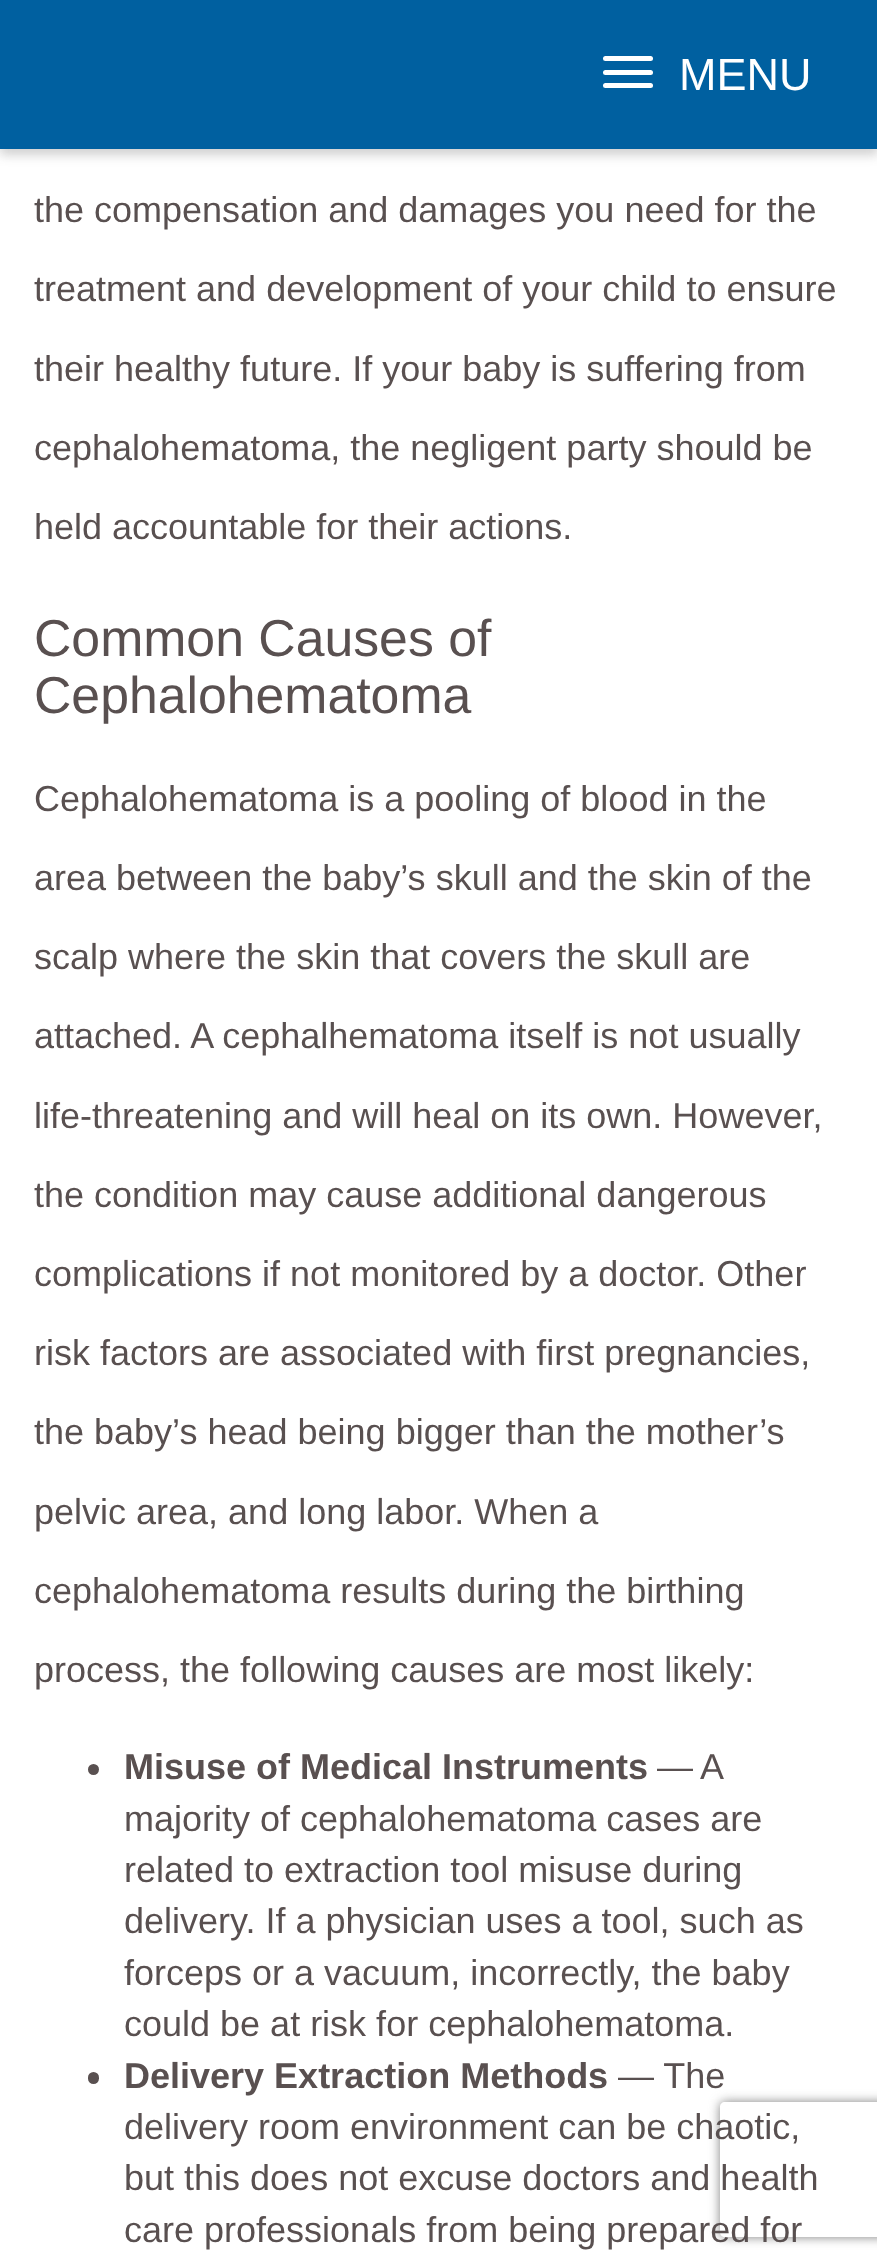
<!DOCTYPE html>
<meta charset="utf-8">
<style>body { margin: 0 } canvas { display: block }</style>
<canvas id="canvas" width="877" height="2267"></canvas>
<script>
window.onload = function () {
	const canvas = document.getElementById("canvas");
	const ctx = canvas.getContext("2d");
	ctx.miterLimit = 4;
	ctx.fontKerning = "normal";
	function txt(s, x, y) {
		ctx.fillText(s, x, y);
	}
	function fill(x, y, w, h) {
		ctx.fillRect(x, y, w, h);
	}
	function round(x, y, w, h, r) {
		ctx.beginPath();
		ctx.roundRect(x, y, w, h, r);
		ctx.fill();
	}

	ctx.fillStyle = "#FFFFFF";
	fill(0, 0, 877, 2267);
	ctx.fillStyle = "rgba(50, 50, 50, 0.23)";
	ctx.filter = "blur(5.5px)";
	ctx.beginPath();
	ctx.rect(0, 7, 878, 148);
	ctx.fill();
	ctx.filter = "none";
	ctx.fillStyle = "#0060A0";
	fill(0, 0, 877, 149);
	ctx.fillStyle = "#FFFFFF";
	round(603, 56, 50, 5, 2.5);
	round(603, 70, 50, 5, 2.5);
	round(603, 83, 50, 5, 2.5);
	ctx.fillStyle = "#595050";
	ctx.beginPath();
	ctx.arc(93.5, 1769.5, 5.5, 0, Math.PI * 2);
	ctx.fill();
	round(88, 2072, 11, 12, 5.5);
	ctx.save();
	ctx.beginPath();
	ctx.moveTo(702, 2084);
	ctx.lineTo(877, 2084);
	ctx.lineTo(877, 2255);
	ctx.lineTo(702, 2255);
	ctx.closePath();
	ctx.moveTo(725, 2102);
	ctx.lineTo(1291, 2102);
	ctx.bezierCurveTo(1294, 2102, 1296, 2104, 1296, 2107);
	ctx.lineTo(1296, 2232);
	ctx.bezierCurveTo(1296, 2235, 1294, 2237, 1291, 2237);
	ctx.lineTo(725, 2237);
	ctx.bezierCurveTo(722, 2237, 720, 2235, 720, 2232);
	ctx.lineTo(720, 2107);
	ctx.bezierCurveTo(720, 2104, 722, 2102, 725, 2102);
	ctx.closePath();
	ctx.clip("evenodd");
	ctx.fillStyle = "#808080";
	ctx.filter = "blur(5.5px)";
	ctx.beginPath();
	ctx.roundRect(720, 2102, 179, 135, 5);
	ctx.fill();
	ctx.filter = "none";
	ctx.restore();
	ctx.font = "45px Liberation Sans";
	ctx.fillStyle = "#FFFFFF";
	txt("MENU", 679, 90);
	ctx.font = "36px Liberation Sans";
	ctx.fillStyle = "#595050";
	txt("the compensation and damages you need for the", 34, 222);
	txt("treatment and development of your child to ensure", 34, 301);
	txt("their healthy future. If your baby is suffering from", 34, 381);
	txt("cephalohematoma, the negligent party should be", 34, 460);
	txt("held accountable for their actions.", 34, 539);
	ctx.font = "51.75px Liberation Sans";
	txt("Common Causes of", 34, 656);
	txt("Cephalohematoma", 34, 713);
	ctx.font = "36px Liberation Sans";
	txt("Cephalohematoma is a pooling of blood in the", 34, 811);
	txt("area between the baby’s skull and the skin of the", 34, 890);
	txt("scalp where the skin that covers the skull are", 34, 969);
	txt("attached. A cephalhematoma itself is not usually", 34, 1048);
	txt("life-threatening and will heal on its own. However,", 34, 1128);
	txt("the condition may cause additional dangerous", 34, 1207);
	txt("complications if not monitored by a doctor. Other", 34, 1286);
	txt("risk factors are associated with first pregnancies,", 34, 1365);
	txt("the baby’s head being bigger than the mother’s", 34, 1444);
	txt("pelvic area, and long labor. When a", 34, 1524);
	txt("cephalohematoma results during the birthing", 34, 1603);
	txt("process, the following causes are most likely:", 34, 1682);
	ctx.font = "bold 36px Liberation Sans";
	txt("Misuse of Medical Instruments", 124, 1779);
	ctx.wordSpacing = "-1px";
	ctx.font = "36px Liberation Sans";
	txt("— A", 657, 1779);
	ctx.wordSpacing = "0px";
	txt("majority of cephalohematoma cases are", 124, 1831);
	txt("related to extraction tool misuse during", 124, 1882);
	txt("delivery. If a physician uses a tool, such as", 124, 1933);
	txt("forceps or a vacuum, incorrectly, the baby", 124, 1985);
	txt("could be at risk for cephalohematoma.", 124, 2036);
	ctx.font = "bold 36px Liberation Sans";
	txt("Delivery Extraction Methods", 124, 2088);
	ctx.font = "36px Liberation Sans";
	txt("— The", 618, 2088);
	txt("delivery room environment can be chaotic,", 124, 2139);
	txt("but this does not excuse doctors and health", 124, 2190);
	txt("care professionals from being prepared for", 124, 2242);
};
</script>
